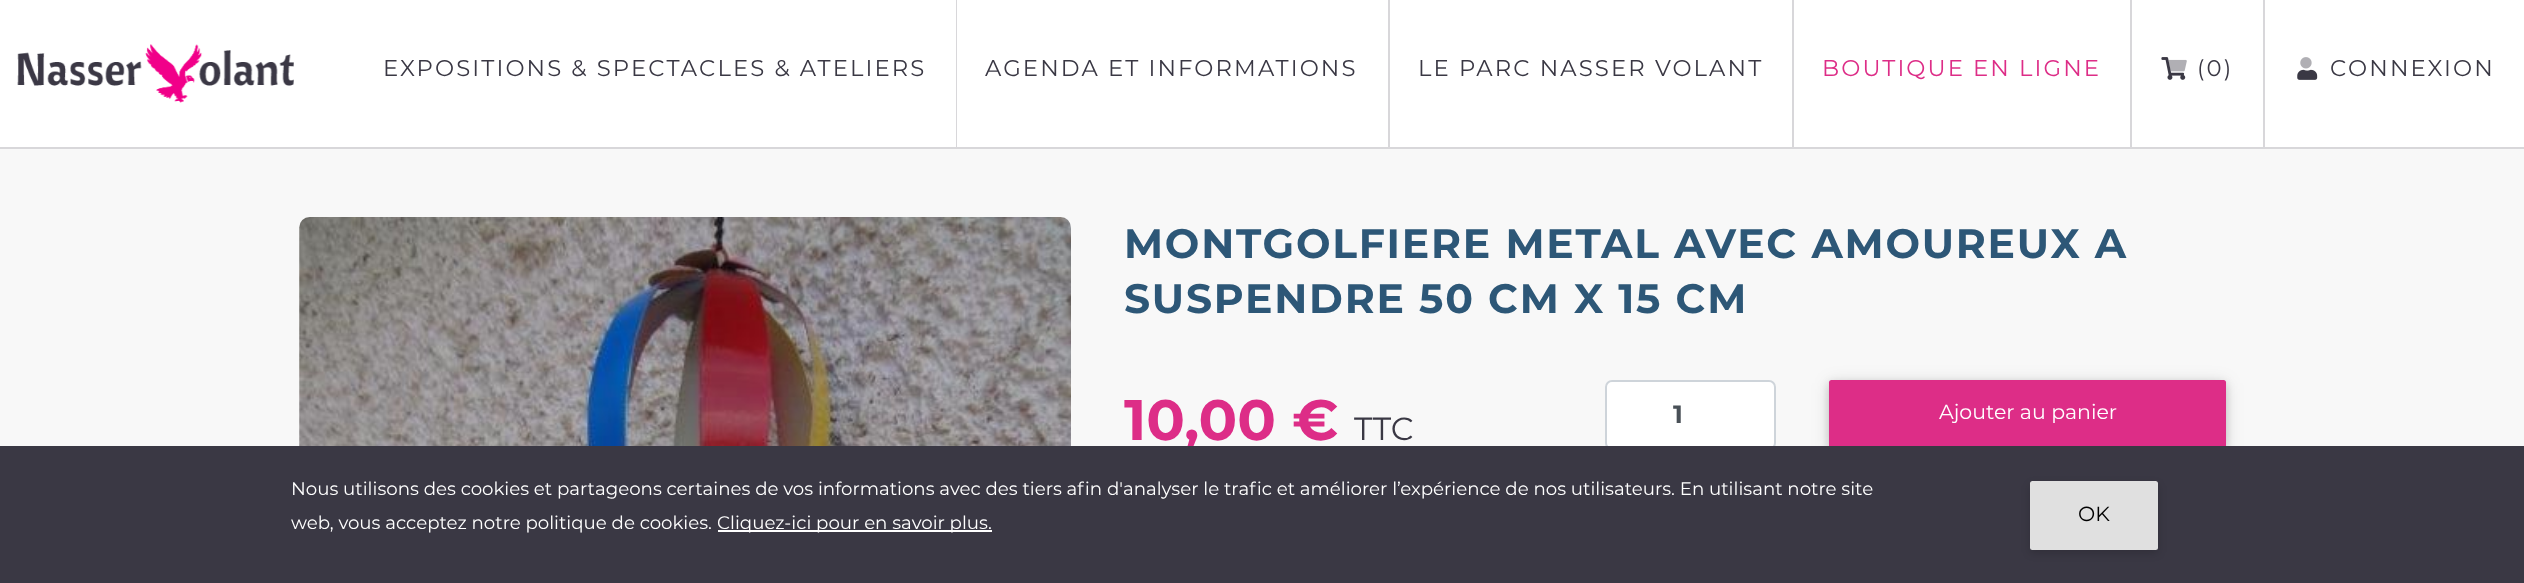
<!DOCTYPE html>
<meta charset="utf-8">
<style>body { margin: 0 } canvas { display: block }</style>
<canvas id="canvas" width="2524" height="583"></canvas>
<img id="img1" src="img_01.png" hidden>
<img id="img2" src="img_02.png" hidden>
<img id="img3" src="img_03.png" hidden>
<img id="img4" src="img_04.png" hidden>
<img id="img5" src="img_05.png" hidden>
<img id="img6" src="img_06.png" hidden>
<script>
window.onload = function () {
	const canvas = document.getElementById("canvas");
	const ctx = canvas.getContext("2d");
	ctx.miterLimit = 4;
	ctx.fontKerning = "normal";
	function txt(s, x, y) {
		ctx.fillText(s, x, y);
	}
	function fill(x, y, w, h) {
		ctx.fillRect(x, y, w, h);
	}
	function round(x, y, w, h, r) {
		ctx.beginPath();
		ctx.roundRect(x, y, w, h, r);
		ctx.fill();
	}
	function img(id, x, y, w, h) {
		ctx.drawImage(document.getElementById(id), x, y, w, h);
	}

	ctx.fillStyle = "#F8F8F8";
	fill(0, 0, 2524, 583);
	ctx.fillStyle = "#FFFFFF";
	fill(0, 0, 2524, 147);
	ctx.fillStyle = "#D8D7DA";
	fill(0, 147, 2524, 2);
	img("img1", 17, 44, 277, 59);
	fill(956, 0, 1, 147);
	fill(1388, 0, 2, 147);
	fill(1792, 0, 2, 147);
	fill(2130, 0, 2, 147);
	fill(2263, 0, 2, 147);
	img("img2", 2161, 57, 25, 23);
	img("img3", 2168, 59, 19, 13);
	img("img4", 2300, 57, 12, 12);
	img("img5", 2297, 69, 21, 11);
	img("img6", 299, 217, 772, 229);
	ctx.fillStyle = "#FFFFFF";
	ctx.beginPath();
	ctx.roundRect(1606, 381, 169, 68, 6);
	ctx.fill();
	ctx.strokeStyle = "#CED4DA";
	ctx.lineWidth = 2;
	ctx.stroke();
	ctx.fillStyle = "rgba(0, 0, 0, 0.12)";
	ctx.filter = "blur(9px)";
	ctx.beginPath();
	ctx.roundRect(1829, 383, 397, 69, 2.5);
	ctx.fill();
	ctx.filter = "none";
	ctx.fillStyle = "rgba(0, 0, 0, 0.16)";
	ctx.filter = "blur(4.5px)";
	ctx.beginPath();
	ctx.roundRect(1829, 383, 397, 69, 2.5);
	ctx.fill();
	ctx.filter = "none";
	ctx.fillStyle = "#DD2D87";
	round(1829, 380, 397, 68, 2.5);
	ctx.letterSpacing = "2.1px";
	ctx.font = "22.75px Montserrat";
	ctx.fillStyle = "#3A3844";
	txt("EXPOSITIONS & SPECTACLES & ATELIERS", 383, 76);
	txt("AGENDA ET INFORMATIONS", 985, 76);
	txt("LE PARC NASSER VOLANT", 1418, 76);
	ctx.fillStyle = "#DD2D87";
	txt("BOUTIQUE EN LIGNE", 1822, 76);
	ctx.fillStyle = "#3A3844";
	txt("(0)", 2197, 76);
	txt("CONNEXION", 2330, 76);
	ctx.letterSpacing = "1.75px";
	ctx.font = "bold 40.95px Montserrat";
	ctx.fillStyle = "#2D5777";
	txt("MONTGOLFIERE METAL AVEC AMOUREUX A", 1124, 258);
	txt("SUSPENDRE 50 CM X 15 CM", 1124, 313);
	ctx.letterSpacing = "0px";
	ctx.font = "bold 57px Montserrat";
	ctx.fillStyle = "#DD2D87";
	txt("10,00 €", 1124, 440);
	ctx.font = "32px Montserrat";
	ctx.fillStyle = "#3A3844";
	txt("TTC", 1354, 440);
	ctx.font = "bold 25px Montserrat";
	ctx.fillStyle = "#495057";
	txt("1", 1673, 423);
	ctx.font = "20.5px Montserrat";
	ctx.fillStyle = "#FFFFFF";
	txt("Ajouter au panier", 1939, 419);
	ctx.fillStyle = "#3A3844";
	fill(0, 446, 2524, 137);
	ctx.font = "18.2px Montserrat";
	ctx.fillStyle = "#FFFFFF";
	txt("Nous utilisons des cookies et partageons certaines de vos informations avec des tiers afin d'analyser le trafic et améliorer l’expérience de nos utilisateurs. En utilisant notre site", 291, 495);
	txt("web, vous acceptez notre politique de cookies.", 291, 529);
	fill(718, 530, 274, 2);
	txt("Cliquez-ici pour en savoir plus.", 717, 529);
	ctx.fillStyle = "rgba(0, 0, 0, 0.16)";
	ctx.filter = "blur(4.5px)";
	ctx.beginPath();
	ctx.roundRect(2030, 485, 128, 68, 2.5);
	ctx.fill();
	ctx.filter = "none";
	ctx.fillStyle = "#E0E0E0";
	round(2030, 481, 128, 69, 2.5);
	ctx.font = "20.5px Montserrat";
	ctx.fillStyle = "#000000";
	txt("OK", 2078, 521);
};
</script>
